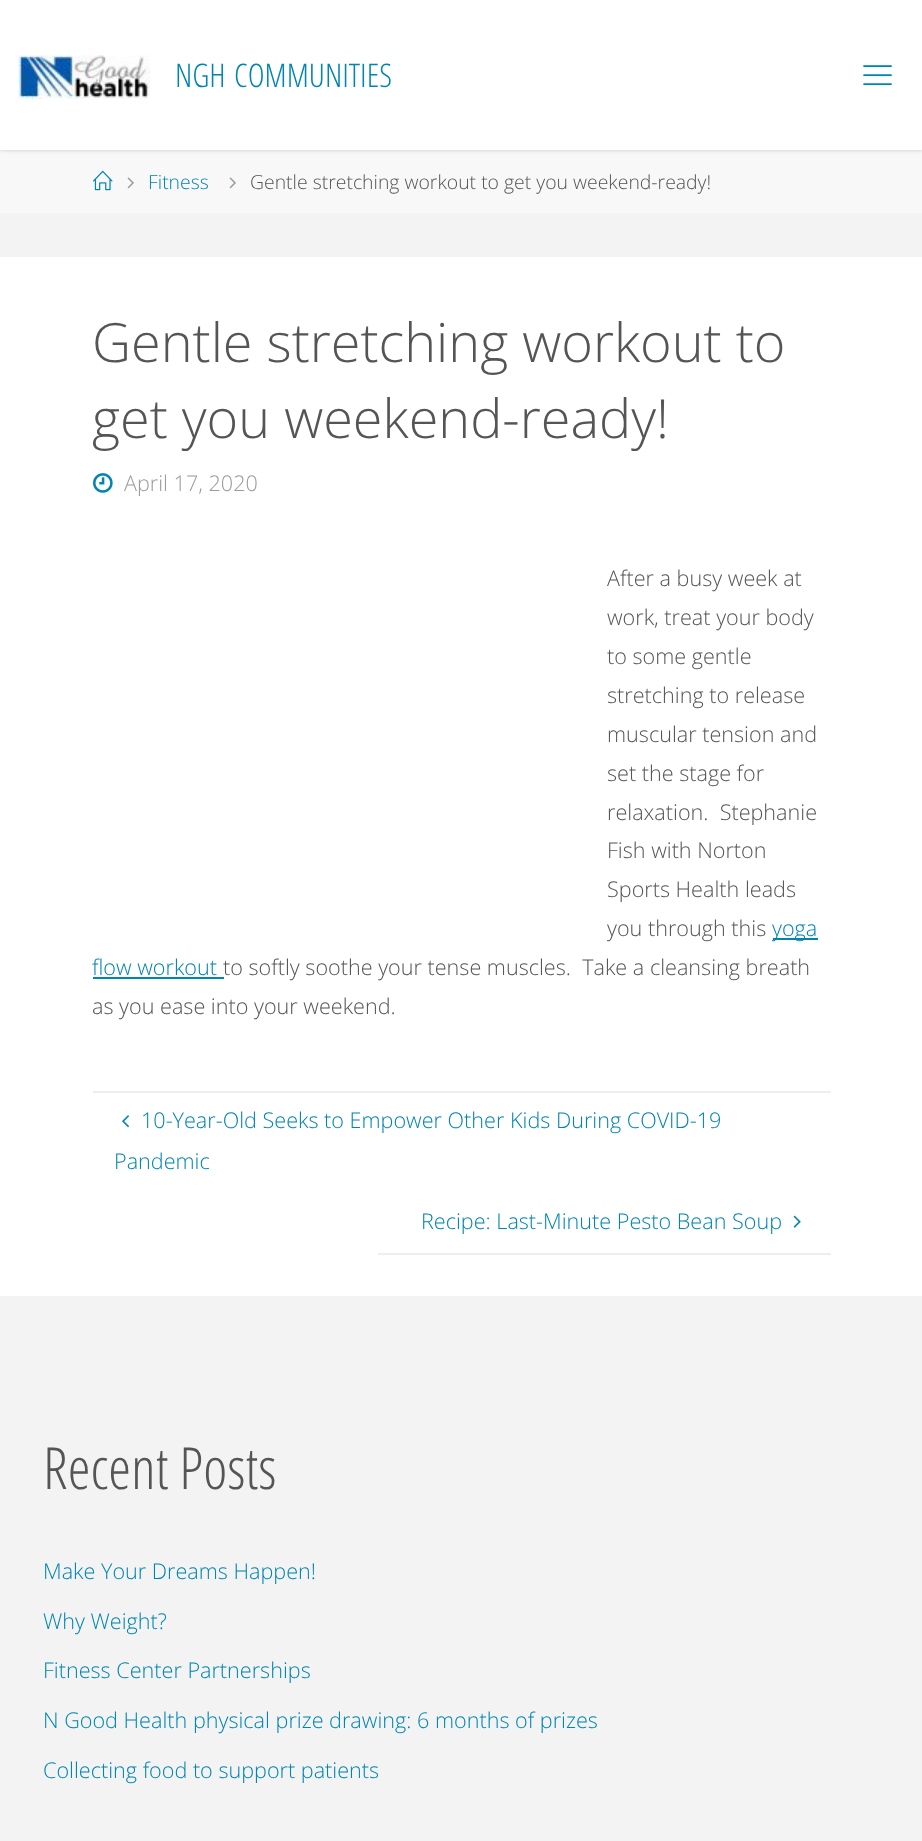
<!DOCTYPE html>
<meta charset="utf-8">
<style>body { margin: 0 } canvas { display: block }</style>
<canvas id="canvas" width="922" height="1841"></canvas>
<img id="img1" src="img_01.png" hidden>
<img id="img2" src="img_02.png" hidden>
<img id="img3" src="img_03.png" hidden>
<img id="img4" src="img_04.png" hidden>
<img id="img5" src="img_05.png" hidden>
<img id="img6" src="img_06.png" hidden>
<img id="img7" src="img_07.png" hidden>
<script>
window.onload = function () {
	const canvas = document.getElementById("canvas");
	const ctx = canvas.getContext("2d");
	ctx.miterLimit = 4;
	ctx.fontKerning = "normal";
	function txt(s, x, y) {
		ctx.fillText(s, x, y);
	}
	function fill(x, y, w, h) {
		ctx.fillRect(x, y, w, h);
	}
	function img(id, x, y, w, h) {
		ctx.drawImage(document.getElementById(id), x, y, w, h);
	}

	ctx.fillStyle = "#F3F3F3";
	fill(0, 0, 922, 1841);
	ctx.fillStyle = "#F8F8F8";
	fill(0, 150, 922, 63);
	ctx.fillStyle = "rgba(0, 0, 0, 0.2)";
	ctx.filter = "blur(2px)";
	ctx.beginPath();
	ctx.rect(0, 0, 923, 150);
	ctx.fill();
	ctx.filter = "none";
	ctx.fillStyle = "#FFFFFF";
	fill(0, 0, 922, 150);
	img("img1", 18, 55, 132, 44);
	img("img2", 863, 65, 29, 21);
	img("img3", 93, 170, 20, 21);
	img("img4", 127, 177, 7, 12);
	img("img4", 229, 177, 7, 12);
	fill(0, 257, 922, 1039);
	img("img5", 93, 473, 20, 20);
	ctx.fillStyle = "#0085B2";
	fill(773, 938, 45, 2);
	fill(93, 977, 131, 2);
	ctx.fillStyle = "#EEEEEE";
	fill(93, 1091, 738, 2);
	img("img6", 122, 1115, 7, 13);
	img("img7", 793, 1215, 8, 13);
	fill(378, 1253, 453, 2);
	ctx.font = "300 32.5px Open Sans Condensed";
	ctx.fillStyle = "#0085B2";
	txt("NGH", 175, 87);
	txt("COMMUNITIES", 234, 87);
	ctx.font = "300 19.4px Open Sans";
	txt("Fitness", 148, 189);
	ctx.fillStyle = "#555555";
	txt("Gentle stretching workout to get you weekend-ready!", 250, 189);
	ctx.font = "300 54px Open Sans";
	txt("Gentle stretching workout to", 92, 362);
	txt("get you weekend-ready!", 92, 438);
	ctx.font = "300 21.6px Open Sans";
	ctx.fillStyle = "#9A9A9A";
	txt("April 17, 2020", 124, 491);
	ctx.fillStyle = "#555555";
	txt("After a busy week at", 607, 586);
	txt("work, treat your body", 607, 625);
	txt("to some gentle", 607, 664);
	txt("stretching to release", 607, 703);
	txt("muscular tension and", 607, 742);
	txt("set the stage for", 607, 781);
	txt("relaxation.  Stephanie", 607, 820);
	txt("Fish with Norton", 607, 858);
	txt("Sports Health leads", 607, 897);
	txt("you through this", 607, 936);
	ctx.fillStyle = "#0085B2";
	txt("yoga", 772, 936);
	txt("flow workout", 92, 975);
	ctx.fillStyle = "#555555";
	txt("to softly soothe your tense muscles.  Take a cleansing breath", 223, 975);
	txt("as you ease into your weekend.", 92, 1014);
	ctx.fillStyle = "#0085B2";
	txt("10-Year-Old Seeks to Empower Other Kids During COVID-19", 141, 1128);
	txt("Pandemic", 114, 1169);
	txt("Recipe: Last-Minute Pesto Bean Soup", 421, 1229);
	ctx.font = "300 58px Open Sans Condensed";
	ctx.fillStyle = "#555555";
	txt("Recent Posts", 43, 1489);
	ctx.font = "300 21.6px Open Sans";
	ctx.fillStyle = "#0085B2";
	txt("Make Your Dreams Happen!", 43, 1579);
	txt("Why Weight?", 43, 1629);
	txt("Fitness Center Partnerships", 43, 1678);
	txt("N Good Health physical prize drawing: 6 months of prizes", 43, 1728);
	txt("Collecting food to support patients", 43, 1778);
};
</script>
